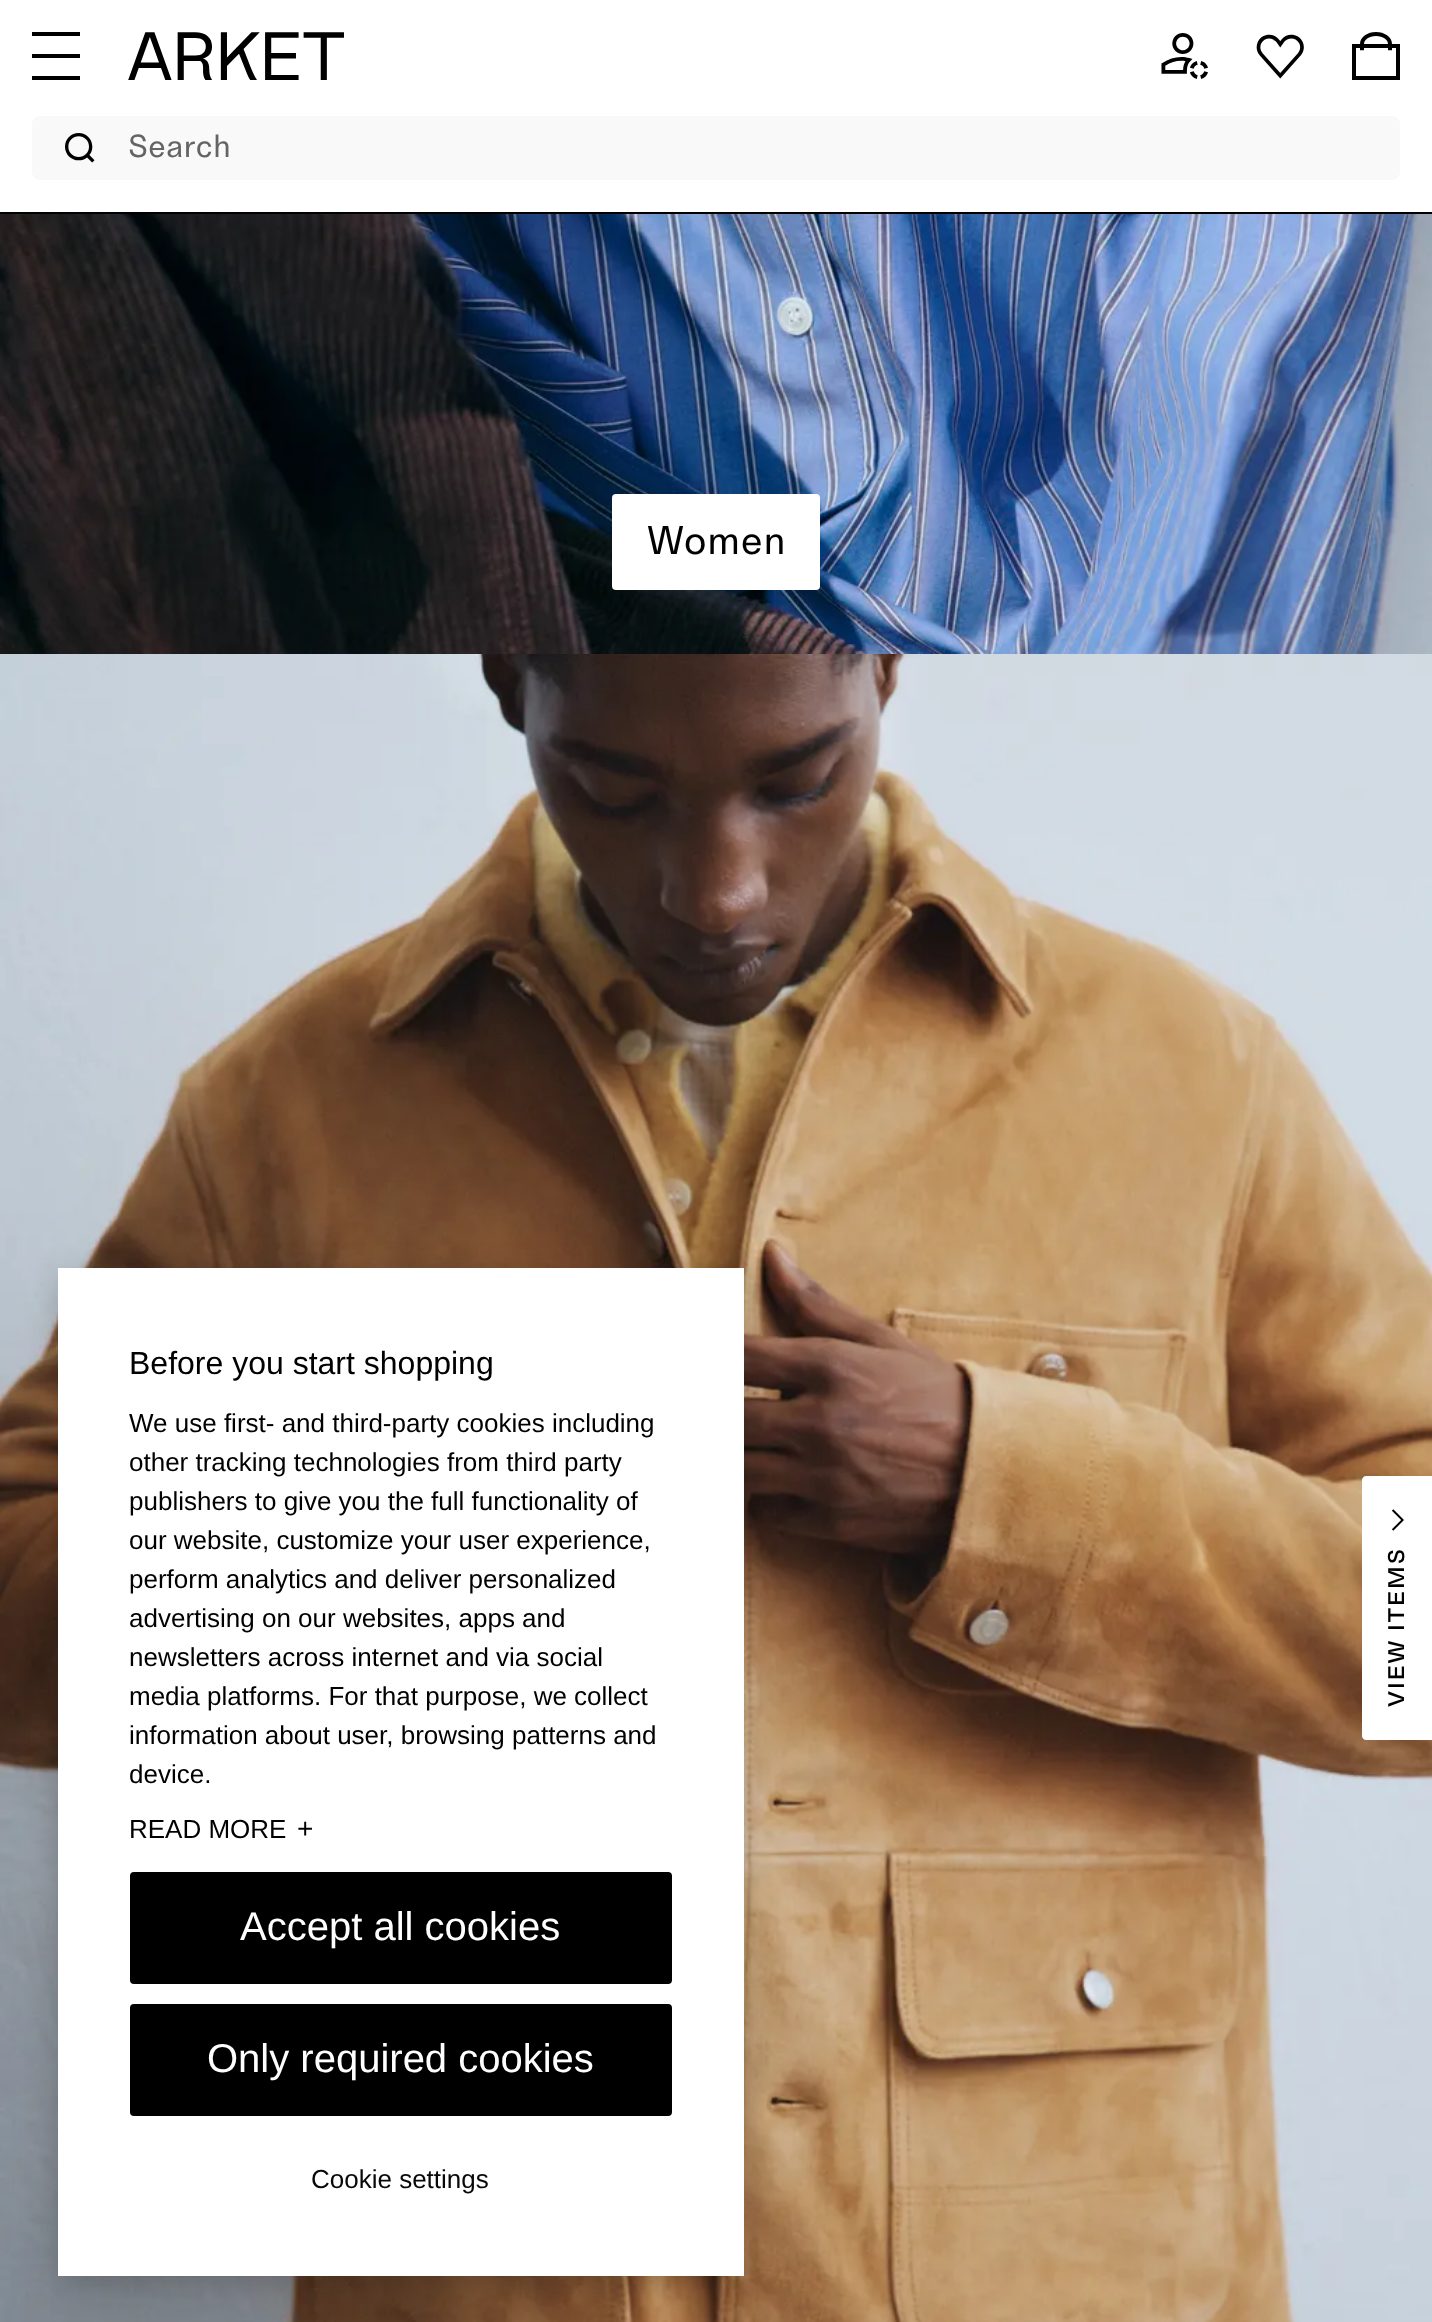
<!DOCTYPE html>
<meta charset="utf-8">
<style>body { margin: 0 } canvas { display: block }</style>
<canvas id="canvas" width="1432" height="2322"></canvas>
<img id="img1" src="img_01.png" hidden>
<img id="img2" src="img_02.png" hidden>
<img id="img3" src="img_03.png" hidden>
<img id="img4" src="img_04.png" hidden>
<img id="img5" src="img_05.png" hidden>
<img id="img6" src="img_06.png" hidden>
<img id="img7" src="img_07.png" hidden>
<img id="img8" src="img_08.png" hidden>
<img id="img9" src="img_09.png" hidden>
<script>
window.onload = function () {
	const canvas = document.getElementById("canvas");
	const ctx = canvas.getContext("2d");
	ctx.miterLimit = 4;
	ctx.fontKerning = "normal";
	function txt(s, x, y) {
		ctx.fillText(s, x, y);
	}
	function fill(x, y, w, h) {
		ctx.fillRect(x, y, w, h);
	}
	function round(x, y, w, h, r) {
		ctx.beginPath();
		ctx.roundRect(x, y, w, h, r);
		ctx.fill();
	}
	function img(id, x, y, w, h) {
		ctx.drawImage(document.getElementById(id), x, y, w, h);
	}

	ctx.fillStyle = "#FFFFFF";
	fill(0, 0, 1432, 2322);
	ctx.fillStyle = "#000000";
	fill(0, 212, 1432, 2);
	img("img1", 32, 32, 48, 48);
	img("img2", 128, 32, 216, 48);
	img("img3", 1161, 33, 47, 46);
	img("img4", 1256, 34, 48, 45);
	img("img5", 1352, 32, 48, 48);
	ctx.fillStyle = "#F9F9F9";
	round(32, 116, 1368, 64, 8);
	img("img6", 65, 133, 30, 30);
	img("img7", 0, 214, 1432, 440);
	ctx.fillStyle = "#FFFFFF";
	round(612, 494, 208, 96, 4);
	img("img8", 0, 654, 1432, 1668);
	ctx.beginPath();
	ctx.moveTo(1362, 1736);
	ctx.lineTo(1362, 1480);
	ctx.bezierCurveTo(1362, 1478, 1364, 1476, 1366, 1476);
	ctx.lineTo(1432, 1476);
	ctx.lineTo(1432, 1740);
	ctx.lineTo(1366, 1740);
	ctx.bezierCurveTo(1364, 1740, 1362, 1738, 1362, 1736);
	ctx.closePath();
	ctx.fill();
	img("img9", 1392, 1509, 12, 22);
	ctx.fillStyle = "rgba(0, 0, 0, 0.2)";
	ctx.filter = "blur(16px)";
	ctx.beginPath();
	ctx.rect(58, 1276, 686, 1008);
	ctx.fill();
	ctx.filter = "none";
	ctx.fillStyle = "#FFFFFF";
	fill(58, 1268, 686, 1008);
	ctx.fillStyle = "#000000";
	ctx.beginPath();
	ctx.roundRect(131, 1873, 540, 110, 3);
	ctx.fill();
	ctx.strokeStyle = "#000000";
	ctx.lineWidth = 2;
	ctx.stroke();
	ctx.beginPath();
	ctx.roundRect(131, 2005, 540, 110, 3);
	ctx.fill();
	ctx.stroke();
	ctx.font = "32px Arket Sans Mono";
	ctx.fillStyle = "#646464";
	txt("Search", 128, 157);
	ctx.font = "40px Arket Sans Mono";
	ctx.fillStyle = "#000000";
	txt("Women", 647, 554);
	ctx.font = "32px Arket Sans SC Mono";
	ctx.save();
	ctx.translate(1404, 1708);
	ctx.rotate(-90 * Math.PI / 180);
	ctx.fillText("View items", 0, 0);
	ctx.restore();
	ctx.font = "32px Liberation Sans";
	txt("Before you start shopping", 129, 1374);
	ctx.font = "26px Liberation Sans";
	txt("We use first- and third-party cookies including", 129, 1432);
	txt("other tracking technologies from third party", 129, 1471);
	txt("publishers to give you the full functionality of", 129, 1510);
	txt("our website, customize your user experience,", 129, 1549);
	txt("perform analytics and deliver personalized", 129, 1588);
	txt("advertising on our websites, apps and", 129, 1627);
	txt("newsletters across internet and via social", 129, 1666);
	txt("media platforms. For that purpose, we collect", 129, 1705);
	txt("information about user, browsing patterns and", 129, 1744);
	txt("device.", 129, 1783);
	txt("READ MORE", 129, 1838);
	ctx.font = "28px Liberation Sans";
	txt("+", 297, 1838);
	ctx.font = "40px Liberation Sans";
	ctx.fillStyle = "#FFFFFF";
	txt("Accept all cookies", 240, 1940);
	txt("Only required cookies", 207, 2072);
	ctx.font = "26px Liberation Sans";
	ctx.fillStyle = "#080808";
	txt("Cookie settings", 311, 2188);
};
</script>
